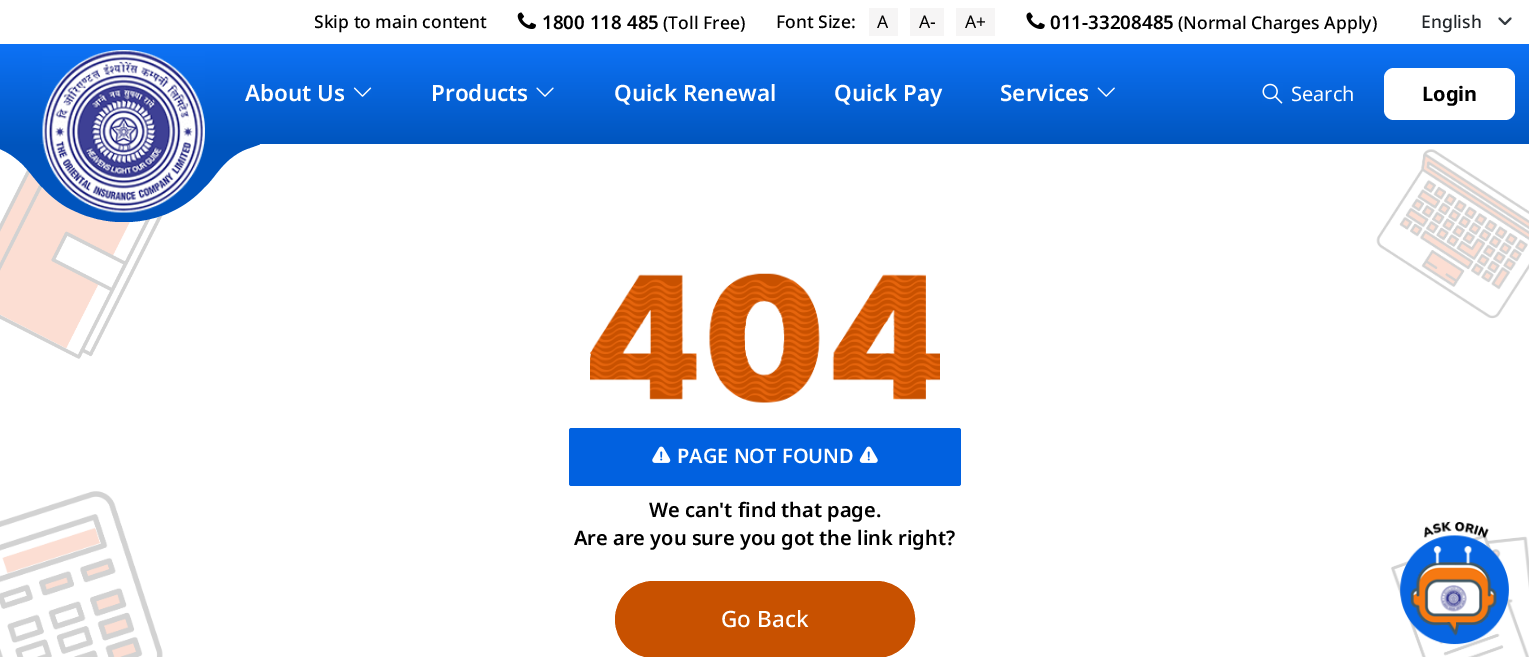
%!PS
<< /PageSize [1529 657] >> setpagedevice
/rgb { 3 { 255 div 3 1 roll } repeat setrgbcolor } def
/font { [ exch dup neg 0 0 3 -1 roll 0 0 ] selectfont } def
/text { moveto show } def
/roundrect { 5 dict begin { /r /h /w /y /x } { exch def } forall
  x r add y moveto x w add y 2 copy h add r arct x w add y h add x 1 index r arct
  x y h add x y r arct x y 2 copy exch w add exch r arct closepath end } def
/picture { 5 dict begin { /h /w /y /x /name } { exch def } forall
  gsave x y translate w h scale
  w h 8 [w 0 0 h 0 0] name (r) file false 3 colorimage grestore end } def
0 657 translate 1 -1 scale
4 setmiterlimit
255 255 255 rgb
0 0 1529 657 rectfill
(img_01.rgb) 517 12 19 17 picture
246 245 245 rgb
869 8 29 28 rectfill
910 8 34 28 rectfill
956 8 39 28 rectfill
(img_02.rgb) 1026 12 19 17 picture
52 58 64 rgb
1.9 setlinewidth
1 setlinecap
1 setlinejoin
1499.5 18.5 moveto 5.5 5.5 rlineto 5.5 -5.5 rlineto stroke
gsave 0 44 moveto 1529 0 rlineto 0 100 rlineto -1529 0 rlineto closepath clip newpath
<< /ShadingType 2 /ColorSpace /DeviceRGB /Coords [765 44 765 144] /Extend [true true] /Function << /FunctionType 2 /Domain [0 1] /C0 [0.051 0.447 0.965] /C1 [0 0.333 0.745] /N 1 >> >> shfill grestore
(img_08.rgb) 0 143 163 514 picture
gsave
0 144 260 78 rectclip
0 84 189 rgb
-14 144 moveto 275 0 rlineto -14 5 rlineto -6 2 -12 6 -17 10 rcurveto -10 8 -16 19 -25 28 rcurveto -10 11 -21 19 -34 25 rcurveto -20 9 -42 12 -63 9 rcurveto -15 -2 -29 -7 -42 -14 rcurveto -10 -6 -19 -14 -26 -22 rcurveto -8 -9 -15 -20 -25 -27 rcurveto -6 -5 -12 -8 -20 -11 rcurveto closepath fill
grestore
(img_03.rgb) 42 50 163 163 picture
(img_04.rgb) 353 87 19 10 picture
(img_05.rgb) 536 87 18 10 picture
(img_06.rgb) 1097 87 18 10 picture
(img_07.rgb) 1262 83 21 21 picture
255 255 255 rgb
1384 68 131 52 10 roundrect fill
(img_09.rgb) 590 273 350 130 picture
1 97 224 rgb
569 428 392 58 2.5 roundrect fill
(img_10.rgb) 652 446 19 17 picture
(img_11.rgb) 859 446 19 17 picture
200 81 0 rgb
615.5 581.5 299 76 38 roundrect gsave fill grestore
1 setlinewidth
0 setlinecap
0 setlinejoin
stroke
(img_12.rgb) 1376 149 153 508 picture
(img_13.rgb) 1400 521 109 124 picture
/NotoSans-Medium 17.5 font
0 0 0 rgb
(Skip to main content) 314 28 text
/NotoSans-SemiBold 18.75 font
(1800 118 485) 542 29 text
/NotoSans-Medium 17.5 font
(\(Toll Free\)) 663 29 text
(Font Size:) 776 28 text
/NotoSans-Regular 17.5 font
(A) 877 28 text
(A-) 919 28 text
(A+) 965 28 text
/NotoSans-SemiBold 18.75 font
(011-33208485) 1050 29 text
/NotoSans-Medium 17.5 font
(\(Normal Charges Apply\)) 1178 29 text
33 37 41 rgb
(English) 1421 28 text
/NotoSans-SemiBold 22.5 font
255 255 255 rgb
(About Us) 245 101 text
(Products) 431 101 text
(Quick Renewal) 614 101 text
(Quick Pay) 834 101 text
(Services) 1000 101 text
/NotoSans-Regular 20 font
(Search) 1291 101 text
/NotoSans-Bold 20 font
0 0 0 rgb
(Login) 1422 101 text
/NotoSans-SemiBold 20 font
255 255 255 rgb
(PAGE NOT FOUND) 677 463 text
0 0 0 rgb
(We can't find that page.) 649 517 text
(Are are you sure you got the link right?) 574 545 text
/NotoSans-Medium 22.5 font
255 255 255 rgb
(Go Back) 721 627 text
showpage
